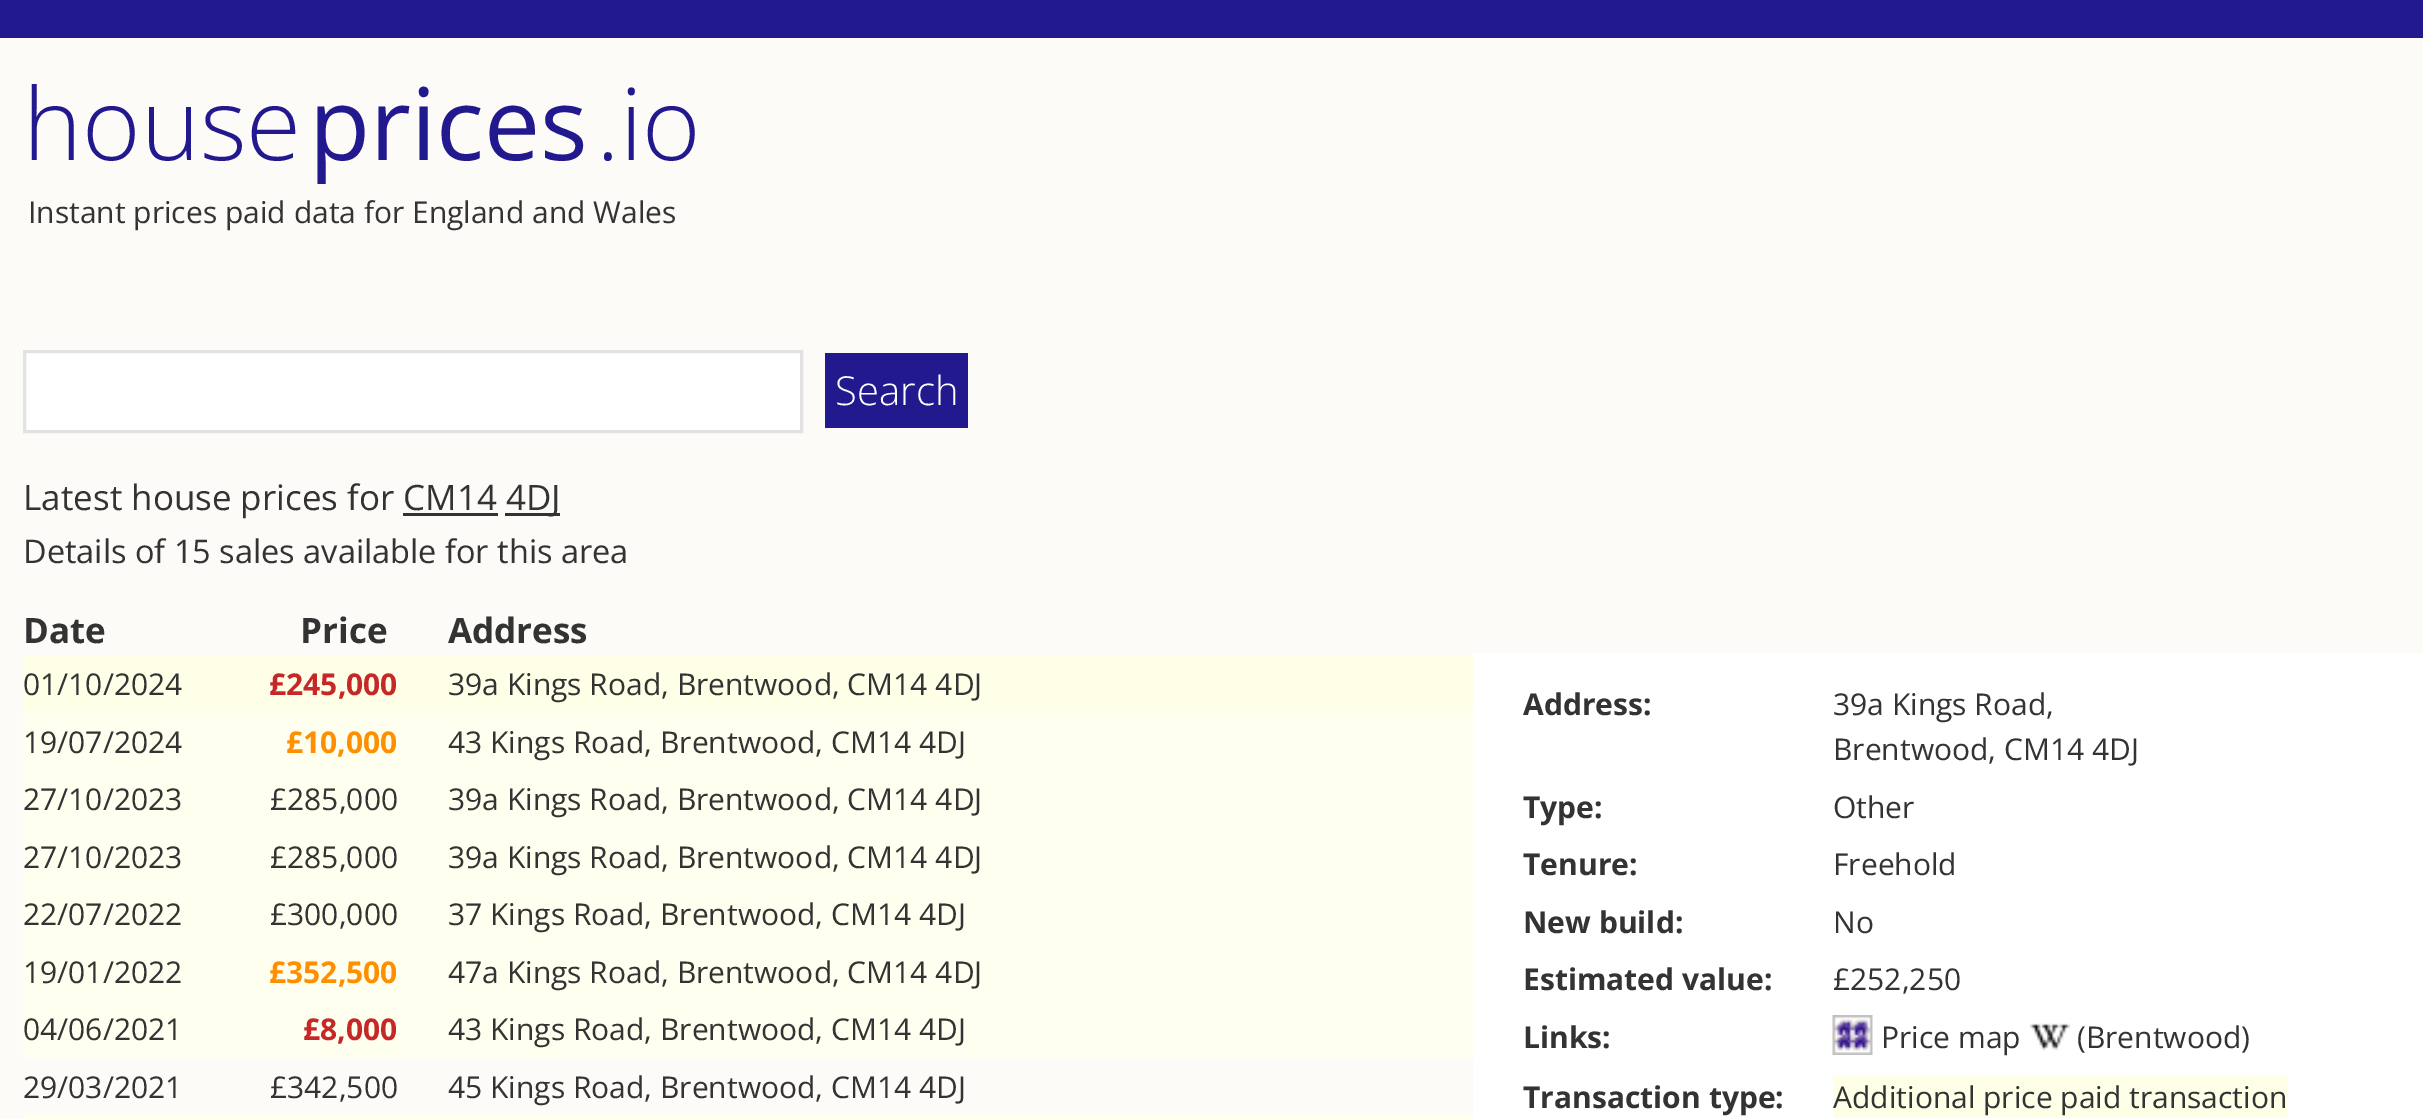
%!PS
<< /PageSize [2423 1119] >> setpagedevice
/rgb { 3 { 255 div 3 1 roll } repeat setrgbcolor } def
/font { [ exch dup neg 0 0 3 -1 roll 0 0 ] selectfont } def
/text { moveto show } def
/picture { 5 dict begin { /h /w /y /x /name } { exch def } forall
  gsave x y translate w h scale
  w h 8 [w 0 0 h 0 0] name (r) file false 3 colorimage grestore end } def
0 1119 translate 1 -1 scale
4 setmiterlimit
253 251 248 rgb
0 0 2423 1119 rectfill
34 25 142 rgb
0 0 2423 38 rectfill
255 255 255 rgb
24.5 351.5 moveto 777 0 rlineto 0 80 rlineto -777 0 rlineto closepath gsave fill grestore
226 226 226 rgb
3 setlinewidth
stroke
34 25 142 rgb
825 353 143 75 rectfill
51 51 51 rgb
505 513 55 3 rectfill
403 513 95 3 rectfill
255 255 232 rgb
23 655 1450 58 rectfill
255 255 240 rgb
23 713 1450 345 rectfill
23 1115 1450 4 rectfill
255 255 255 rgb
1473 653 950 466 rectfill
(img_01.rgb) 1832 1015 41 40 picture
(img_02.rgb) 2030 1023 40 28 picture
255 255 232 rgb
1833 1075 455 43 rectfill
/OpenSans-Light 100 font
34 25 142 rgb
(house) 23 160 text
/OpenSans-Regular 100 font
(prices) 309 160 text
/OpenSans-Light 100 font
(.io) 596 160 text
/OpenSans-Regular 30 font
51 51 51 rgb
(Instant prices paid data for England and Wales) 28 223 text
/OpenSans-Light 40 font
255 255 255 rgb
(Search) 835 405 text
/OpenSans-Regular 35 font
51 51 51 rgb
(Latest house prices for CM14) 23 510 text
(4DJ) 506 510 text
/OpenSans-Regular 32.5 font
(Details of 15 sales available for this area) 23 563 text
/OpenSans-Bold 35 font
(Date) 23 643 text
(Price) 300 643 text
(Address) 448 643 text
/OpenSans-Regular 30 font
(01/10/2024) 23 695 text
/OpenSans-Bold 30 font
198 40 40 rgb
(£245,000) 269 695 text
/OpenSans-Regular 30 font
51 51 51 rgb
(39a Kings Road, Brentwood, CM14 4DJ) 448 695 text
(19/07/2024) 23 753 text
/OpenSans-Bold 30 font
255 143 0 rgb
(£10,000) 286 753 text
/OpenSans-Regular 30 font
51 51 51 rgb
(43 Kings Road, Brentwood, CM14 4DJ) 448 753 text
(27/10/2023) 23 810 text
(£285,000) 270 810 text
(39a Kings Road, Brentwood, CM14 4DJ) 448 810 text
(27/10/2023) 23 868 text
(£285,000) 270 868 text
(39a Kings Road, Brentwood, CM14 4DJ) 448 868 text
(22/07/2022) 23 925 text
(£300,000) 270 925 text
(37 Kings Road, Brentwood, CM14 4DJ) 448 925 text
(19/01/2022) 23 983 text
/OpenSans-Bold 30 font
255 143 0 rgb
(£352,500) 269 983 text
/OpenSans-Regular 30 font
51 51 51 rgb
(47a Kings Road, Brentwood, CM14 4DJ) 448 983 text
(04/06/2021) 23 1040 text
/OpenSans-Bold 30 font
198 40 40 rgb
(£8,000) 303 1040 text
/OpenSans-Regular 30 font
51 51 51 rgb
(43 Kings Road, Brentwood, CM14 4DJ) 448 1040 text
(29/03/2021) 23 1098 text
(£342,500) 270 1098 text
(45 Kings Road, Brentwood, CM14 4DJ) 448 1098 text
/OpenSans-Bold 30 font
(Address:) 1523 715 text
/OpenSans-Regular 30 font
(39a Kings Road,) 1833 715 text
(Brentwood, CM14 4DJ) 1833 760 text
/OpenSans-Bold 30 font
(Type:) 1523 818 text
/OpenSans-Regular 30 font
(Other) 1833 818 text
/OpenSans-Bold 30 font
(Tenure:) 1523 875 text
/OpenSans-Regular 30 font
(Freehold) 1833 875 text
/OpenSans-Bold 30 font
(New build:) 1523 933 text
/OpenSans-Regular 30 font
(No) 1833 933 text
/OpenSans-Bold 30 font
(Estimated value:) 1523 990 text
/OpenSans-Regular 30 font
(£252,250) 1833 990 text
/OpenSans-Bold 30 font
(Links:) 1523 1048 text
/OpenSans-Regular 30 font
(Price map) 1881 1048 text
(\(Brentwood\)) 2077 1048 text
/OpenSans-Bold 30 font
(Transaction type:) 1523 1108 text
/OpenSans-Regular 30 font
(Additional price paid transaction) 1833 1108 text
showpage
